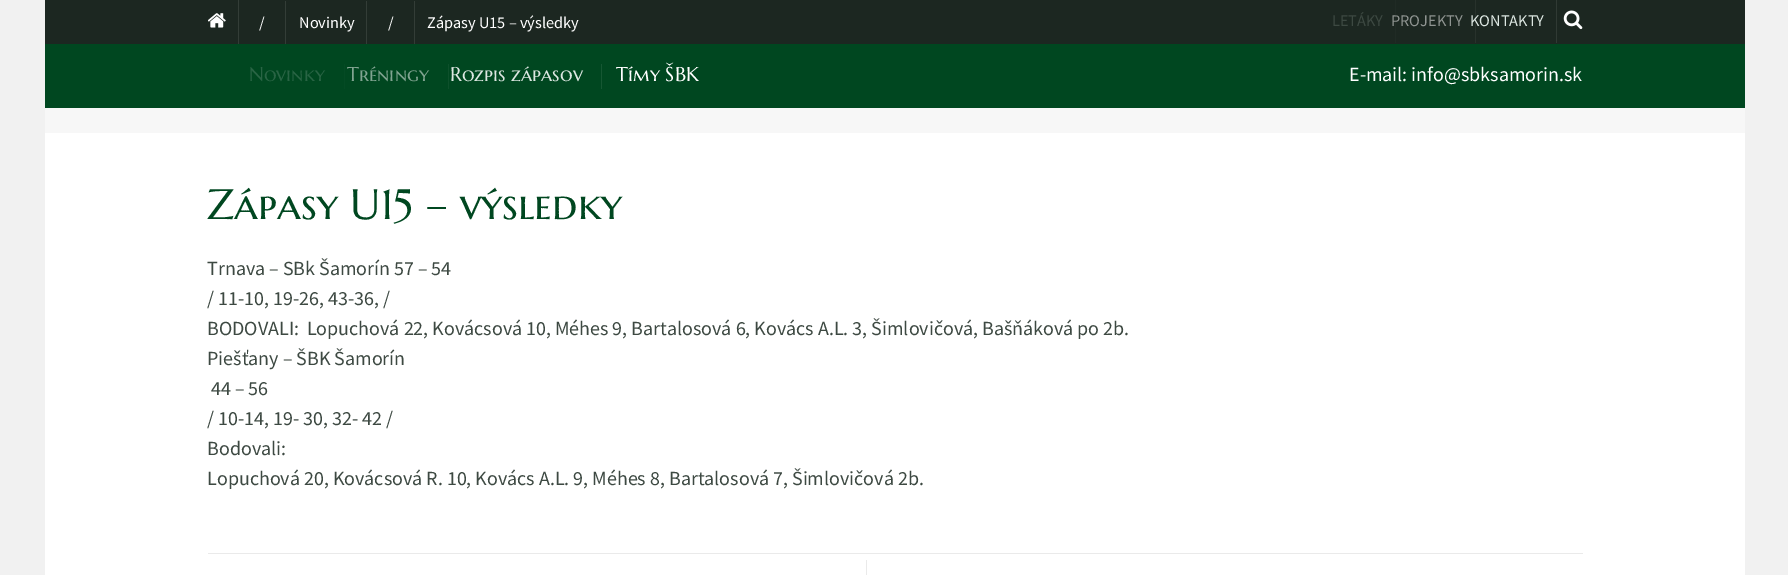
%!PS
<< /PageSize [1788 575] >> setpagedevice
/rgb { 3 { 255 div 3 1 roll } repeat setrgbcolor } def
/font { [ exch dup neg 0 0 3 -1 roll 0 0 ] selectfont } def
/text { moveto show } def
/picture { 5 dict begin { /h /w /y /x /name } { exch def } forall
  gsave x y translate w h scale
  w h 8 [w 0 0 h 0 0] name (r) file false 3 colorimage grestore end } def
0 575 translate 1 -1 scale
4 setmiterlimit
241 241 241 rgb
0 0 1788 575 rectfill
28 39 33 rgb
45 0 1700 44 rectfill
51 61 55 rgb
238 0 1 44 rectfill
(img_01.rgb) 208 13 18 15 picture
285 1 1 43 rectfill
366 1 1 43 rectfill
414 1 1 43 rectfill
32 43 37 rgb
1395 0 1 43 rectfill
40 50 44 rgb
1475 0 1 43 rectfill
48 58 52 rgb
1556 0 1 43 rectfill
(img_02.rgb) 1563 10 20 20 picture
0 71 32 rgb
45 44 1700 64 rectfill
4 74 36 rgb
344 64 1 25 rectfill
13 80 43 rgb
448 64 1 25 rectfill
22 87 51 rgb
601 64 1 25 rectfill
247 247 247 rgb
45 108 1700 25 rectfill
255 255 255 rgb
45 133 1700 442 rectfill
234 234 234 rgb
208 553 1375 1 rectfill
866 560 1 15 rectfill
/SourceSansPro-Regular 16.25 font
255 255 255 rgb
(/) 259 28 text
(Novinky) 299 28 text
(/) 388 28 text
(Zápasy U15 – výsledky) 427 28 text
61 73 66 rgb
(LETÁKY) 1332 26 text
143 148 145 rgb
(PROJEKTY) 1391 26 text
221 231 226 rgb
(KONTAKTY) 1470 26 text
/MarcellusSC-Regular 20 font
41 100 68 rgb
(Novinky) 249 81 text
129 164 145 rgb
(Tréningy) 347 81 text
221 231 226 rgb
(Rozpis zápasov) 450 81 text
255 255 255 rgb
(Tímy ŠBK) 616 81 text
/SourceSansPro-Regular 20 font
(E-mail: info@sbksamorin.sk) 1349 81 text
/MarcellusSC-Regular 42.5 font
0 71 32 rgb
(Zápasy U15 – výsledky) 207 219 text
/SourceSansPro-Regular 20 font
61 73 66 rgb
(Trnava – SBk Šamorín 57 – 54) 207 275 text
(/ 11-10, 19-26, 43-36, /) 207 305 text
(BODOVALI:  Lopuchová 22, Kovácsová 10, Méhes 9, Bartalosová 6, Kovács A.L. 3, Šimlovičová, Bašňáková po 2b.) 207 335 text
(Piešťany – ŠBK Šamorín) 207 365 text
(44 – 56) 211 395 text
(/ 10-14, 19- 30, 32- 42 /) 207 425 text
(Bodovali:) 207 455 text
(Lopuchová 20, Kovácsová R. 10, Kovács A.L. 9, Méhes 8, Bartalosová 7, Šimlovičová 2b.) 207 485 text
showpage
